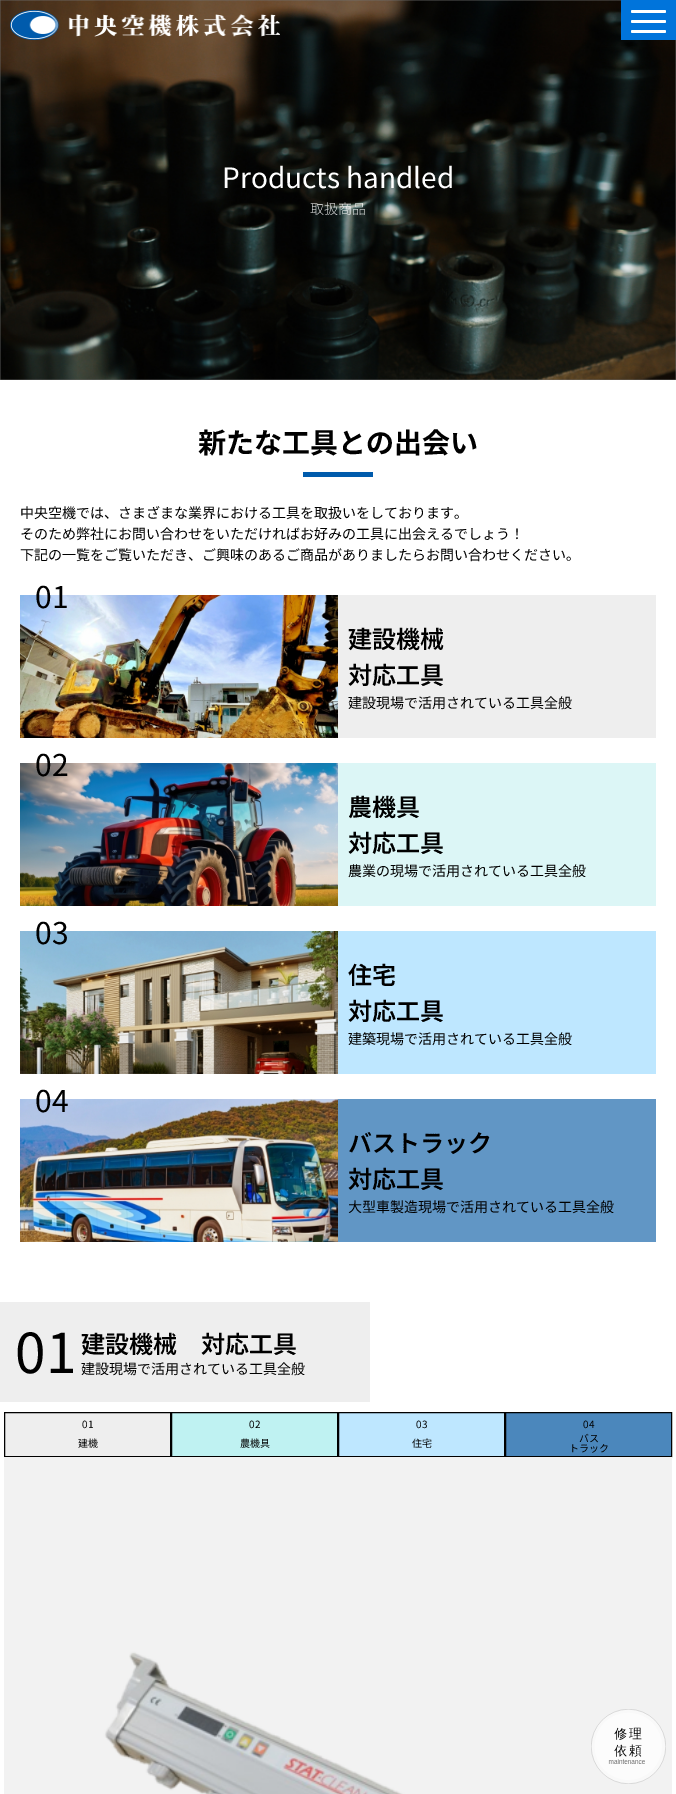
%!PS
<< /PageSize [676 1794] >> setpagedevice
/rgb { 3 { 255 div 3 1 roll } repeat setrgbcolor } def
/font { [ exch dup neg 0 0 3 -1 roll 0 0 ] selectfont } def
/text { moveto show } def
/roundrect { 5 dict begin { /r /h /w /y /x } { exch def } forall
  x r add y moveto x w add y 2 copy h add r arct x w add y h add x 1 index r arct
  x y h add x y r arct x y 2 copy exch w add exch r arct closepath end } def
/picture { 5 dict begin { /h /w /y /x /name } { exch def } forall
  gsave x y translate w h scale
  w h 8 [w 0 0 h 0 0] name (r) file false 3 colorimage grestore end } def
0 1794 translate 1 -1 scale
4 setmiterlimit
255 255 255 rgb
0 0 676 1794 rectfill
(img_02.rgb) 0 0 676 380 picture
(img_01.rgb) 10 10 270 30 picture
0 116 219 rgb
621 0 55 40 rectfill
255 255 255 rgb
631 10 35 3 1.5 roundrect fill
631 20 35 3 1.5 roundrect fill
631 30 35 3 1.5 roundrect fill
0 91 172 rgb
303 472 70 5 rectfill
(img_03.rgb) 20 595 318 143 picture
238 238 238 rgb
338 595 318 143 rectfill
(img_04.rgb) 20 763 318 143 picture
220 246 246 rgb
338 763 318 143 rectfill
(img_05.rgb) 20 931 318 143 picture
190 231 255 rgb
338 931 318 143 rectfill
(img_06.rgb) 20 1099 318 143 picture
97 150 197 rgb
338 1099 318 143 rectfill
238 238 238 rgb
0 1302 370 100 rectfill
4.5 1412.5 moveto 166 0 rlineto 0 44 rlineto -166 0 rlineto closepath gsave fill grestore
0 0 0 rgb
stroke
191 242 242 rgb
171.5 1412.5 moveto 166 0 rlineto 0 44 rlineto -166 0 rlineto closepath gsave fill grestore
0 0 0 rgb
stroke
190 231 255 rgb
338.5 1412.5 moveto 166 0 rlineto 0 44 rlineto -166 0 rlineto closepath gsave fill grestore
0 0 0 rgb
stroke
75 135 188 rgb
505.5 1412.5 moveto 166 0 rlineto 0 44 rlineto -166 0 rlineto closepath gsave fill grestore
0 0 0 rgb
stroke
(img_07.rgb) 4 1457 668 337 picture
(img_08.rgb) 591 1709 75 75 picture
/NotoSansJP-Regular 28 font
255 255 255 rgb
(Products handled) 222 188 text
/NotoSansJP-ExtraLight 14 font
(取扱商品) 310 214 text
/NotoSansJP-Bold 28 font
0 0 0 rgb
(新たな工具との出会い) 198 453 text
/NotoSansJP-Regular 14 font
(中央空機では、さまざまな業界における工具を取扱いをしております。) 20 518 text
(そのため弊社にお問い合わせをいただければお好みの工具に出会えるでしょう！) 20 539 text
(下記の一覧をご覧いただき、ご興味のあるご商品がありましたらお問い合わせください。) 20 560 text
/NotoSansJP-Regular 30 font
(01) 35 608 text
/NotoSansJP-SemiBold 24 font
(建設機械) 348 648 text
(対応工具) 348 684 text
/NotoSansJP-Regular 14 font
(建設現場で活用されている工具全般) 348 708 text
/NotoSansJP-Regular 30 font
(02) 35 776 text
/NotoSansJP-SemiBold 24 font
(農機具) 348 816 text
(対応工具) 348 852 text
/NotoSansJP-Regular 14 font
(農業の現場で活用されている工具全般) 348 876 text
/NotoSansJP-Regular 30 font
(03) 35 944 text
/NotoSansJP-SemiBold 24 font
(住宅) 348 984 text
(対応工具) 348 1020 text
/NotoSansJP-Regular 14 font
(建築現場で活用されている工具全般) 348 1044 text
/NotoSansJP-Regular 30 font
(04) 35 1112 text
/NotoSansJP-SemiBold 24 font
(バストラック) 348 1152 text
(対応工具) 348 1188 text
/NotoSansJP-Regular 14 font
(大型車製造現場で活用されている工具全般) 348 1212 text
/NotoSansJP-Regular 55 font
(01) 15 1373 text
/NotoSansJP-SemiBold 24 font
(建設機械　対応工具) 81 1353 text
/NotoSansJP-Regular 14 font
(建設現場で活用されている工具全般) 81 1374 text
/NotoSansJP-Regular 10 font
(01) 82 1428 text
(建機) 78 1447 text
(02) 249 1428 text
(農機具) 240 1447 text
(03) 416 1428 text
(住宅) 412 1447 text
(04) 583 1428 text
(バス) 579 1442 text
(トラック) 569 1452 text
showpage
